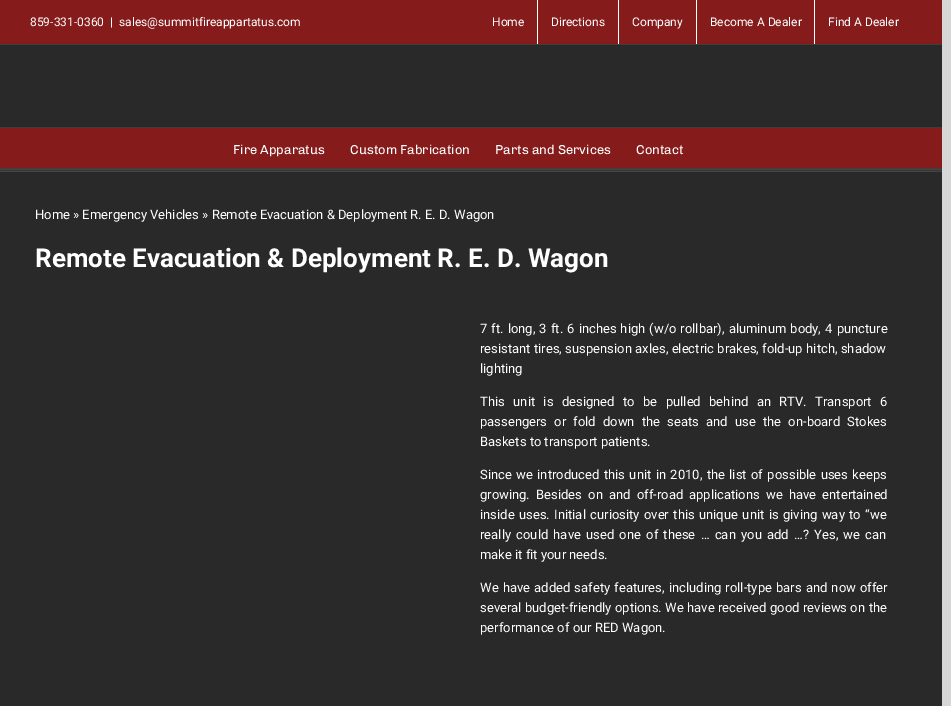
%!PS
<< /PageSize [951 706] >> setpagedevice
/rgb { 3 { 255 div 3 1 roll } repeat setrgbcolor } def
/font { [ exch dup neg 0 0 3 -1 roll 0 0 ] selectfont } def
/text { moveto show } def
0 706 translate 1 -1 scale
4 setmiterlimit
215 214 214 rgb
0 0 951 706 rectfill
133 27 27 rgb
0 0 942 44 rectfill
62 62 62 rgb
0 44 942 1 rectfill
255 255 255 rgb
537 0 1 44 rectfill
618 0 1 44 rectfill
696 0 1 44 rectfill
814 0 1 44 rectfill
41 41 42 rgb
0 45 942 82 rectfill
62 62 62 rgb
0 127 942 1 rectfill
133 27 27 rgb
0 128 942 40 rectfill
62 62 62 rgb
0 168 942 1 rectfill
53 53 53 rgb
0 170 942 1 rectfill
70 70 70 rgb
0 169 942 1 rectfill
0 171 942 1 rectfill
41 41 42 rgb
0 172 942 534 rectfill
/Roboto-Regular 12 font
255 255 255 rgb
(859-331-0360) 30 26 text
(|) 110 26 text
(sales@summitfireappartatus.com) 119 26 text
(Home) 492 26 text
(Directions) 551 26 text
(Company) 632 26 text
(Become A Dealer) 710 26 text
(Find A Dealer) 828 26 text
/Chivo-Regular 13 font
(Fire Apparatus) 233 154 text
(Custom Fabrication) 350 154 text
(Parts and Services) 495 154 text
(Contact) 636 154 text
/Roboto-Regular 13 font
(Home » Emergency Vehicles » Remote Evacuation & Deployment R. E. D. Wagon) 35 219 text
/Roboto-Bold 26 font
(Remote Evacuation & Deployment R. E. D. Wagon) 35 267 text
/Roboto-Regular 13 font
480 333 moveto 0.9 0 32 (7 ft. long, 3 ft. 6 inches high \(w/o rollbar\), aluminum body, 4 puncture) widthshow
480 353 moveto 0.25 0 32 (resistant tires, suspension axles, electric brakes, fold-up hitch, shadow) widthshow
(lighting) 480 373 text
480 406 moveto 5.25 0 32 (This unit is designed to be pulled behind an RTV. Transport 6) widthshow
480 426 moveto 4 0 32 (passengers or fold down the seats and use the on-board Stokes) widthshow
(Baskets to transport patients.) 480 446 text
480 479 moveto 1.25 0 32 (Since we introduced this unit in 2010, the list of possible uses keeps) widthshow
480 499 moveto 3 0 32 (growing. Besides on and off-road applications we have entertained) widthshow
480 519 moveto 1.25 0 32 (inside uses. Initial curiosity over this unique unit is giving way to “we) widthshow
480 539 moveto 2.1 0 32 (really could have used one of these … can you add …? Yes, we can) widthshow
(make it fit your needs.) 480 559 text
480 592 moveto 1 0 32 (We have added safety features, including roll-type bars and now offer) widthshow
480 612 moveto 0.25 0 32 (several budget-friendly options. We have received good reviews on the) widthshow
(performance of our RED Wagon.) 480 632 text
showpage
